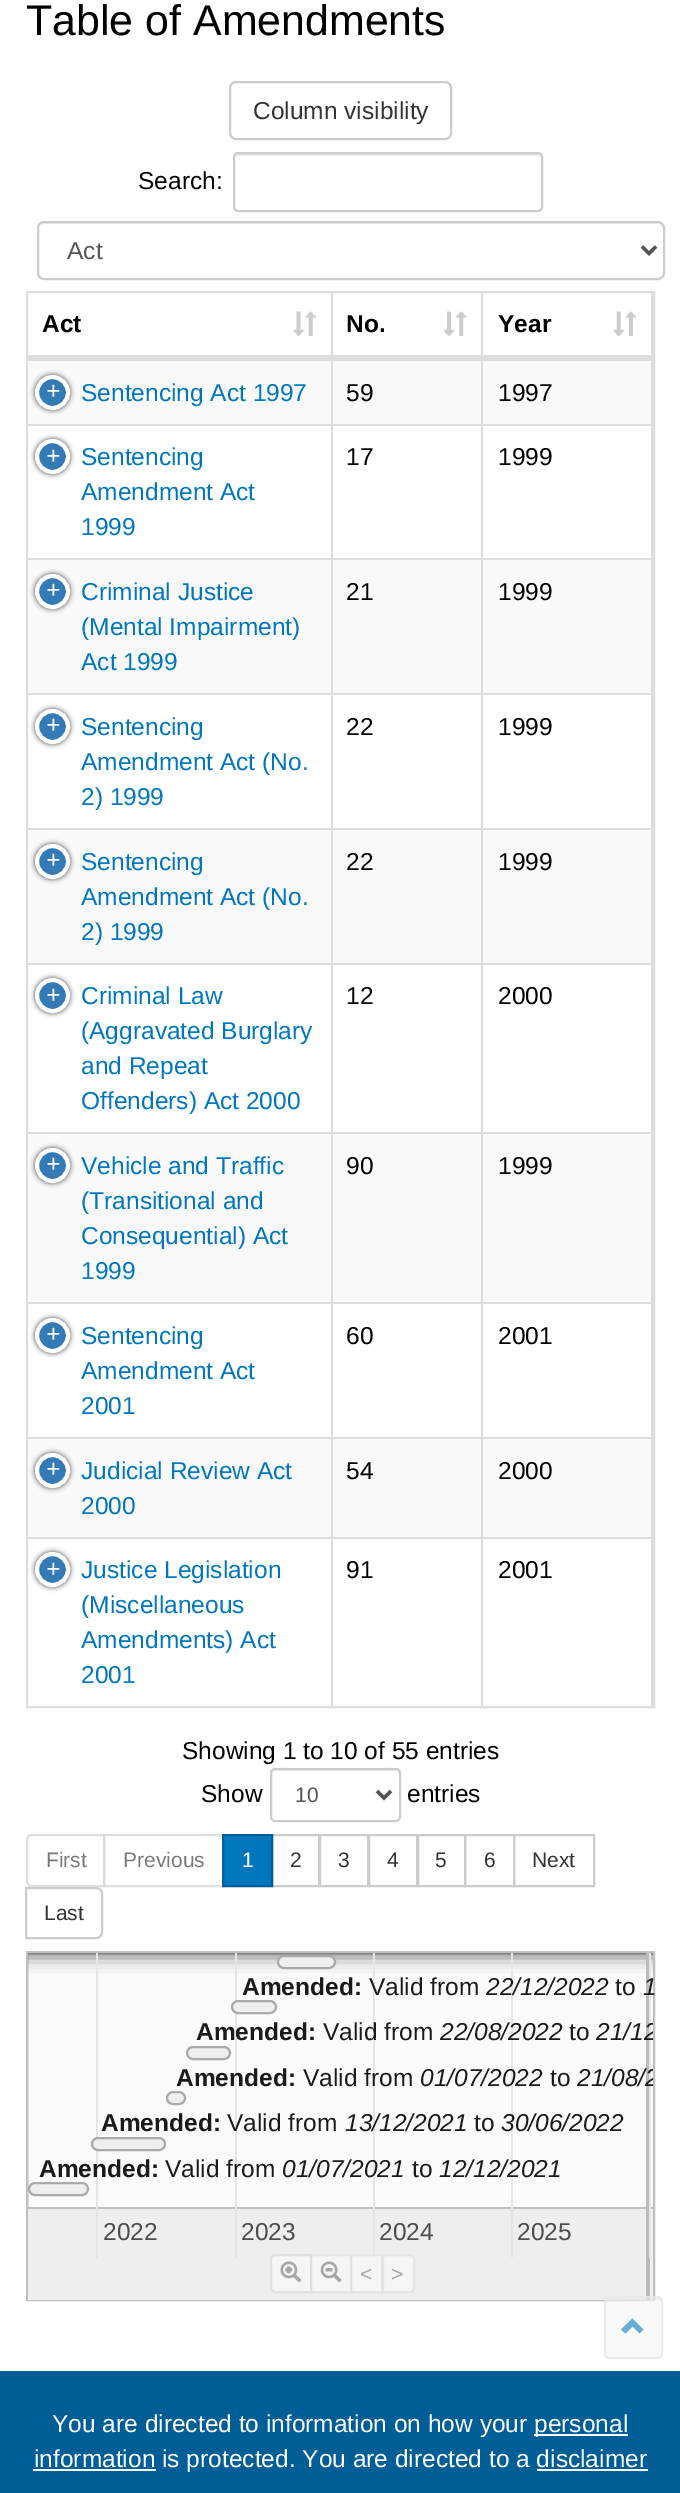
%!PS
<< /PageSize [680 2493] /PageUsesTransparency true >> setpagedevice
/rgb { 3 { 255 div 3 1 roll } repeat setrgbcolor } def
/font { [ exch dup neg 0 0 3 -1 roll 0 0 ] selectfont } def
/text { moveto show } def
/alpha { dup .setfillconstantalpha .setstrokeconstantalpha } def
/circle { newpath 0 360 arc closepath } def
/roundrect { 5 dict begin { /r /h /w /y /x } { exch def } forall
  x r add y moveto x w add y 2 copy h add r arct x w add y h add x 1 index r arct
  x y h add x y r arct x y 2 copy exch w add exch r arct closepath end } def
/shadow { 12 dict begin { /a /b /q /h /w /y /x } { exch def } forall gsave /was 0 def
  9 -2 -9 { dup b mul 4 div /e exch def 1 sub .425 mul 2.718 exch exp 1 add a .99 .min exch div /now exch def
    1 1 now sub 1 was sub div sub alpha /was now def
    w h .min e 2 mul add 0 gt { x e sub y e sub w e 2 mul add h e 2 mul add
      q e add b .6 mul add w h .min 2 div e add .min 0 .max roundrect fill } if } for grestore end } def
/picture { 5 dict begin { /h /w /y /x /name } { exch def } forall
  gsave x y translate w h scale
  w h 8 [w 0 0 h 0 0] name (r) file false 3 colorimage grestore end } def
0 .pushpdf14devicefilter
0 2493 translate 1 -1 scale
4 setmiterlimit
255 255 255 rgb
0 0 680 2493 rectfill
204 204 204 rgb
2 setlinewidth
230 82 221 57 6 roundrect stroke
236 236 236 rgb
238 156 moveto 299 0 rlineto 2 0 4 1 4 3 rcurveto 0 -1 rlineto 0 -2 -2 -4 -4 -4 rcurveto -298 0 rlineto -2 0 -3 1 -4 3 rcurveto closepath fill
204 204 204 rgb
234 153 308 58 4 roundrect stroke
236 236 236 rgb
44 224 moveto 614 0 rlineto 3 0 5 2 5 5 rcurveto 0 -2 rlineto 0 -3 -2 -5 -5 -5 rcurveto -614 0 rlineto -2 0 -5 2 -5 4 rcurveto 1 -1 3 -2 5 -2 rcurveto closepath fill
204 204 204 rgb
38 222 626 57 6 roundrect stroke
85 85 85 rgb
3.5 setlinewidth
642 246.5 moveto 7 7 rlineto 7 -7 rlineto stroke
221 221 221 rgb
2 setlinewidth
27 292 627 1415 rectstroke
249 249 249 rgb
28 361 623 63 rectfill
221 221 221 rgb
28 359 625 2 rectfill
28 424 625 2 rectfill
249 249 249 rgb
28 560 623 133 rectfill
221 221 221 rgb
28 558 625 2 rectfill
28 693 625 2 rectfill
249 249 249 rgb
28 830 623 133 rectfill
221 221 221 rgb
28 828 625 2 rectfill
28 963 625 2 rectfill
249 249 249 rgb
28 1134 623 168 rectfill
221 221 221 rgb
28 1132 625 2 rectfill
28 1302 625 2 rectfill
249 249 249 rgb
28 1439 623 98 rectfill
221 221 221 rgb
28 1437 625 2 rectfill
28 1537 625 2 rectfill
331 292 2 1414 rectfill
481 292 2 132 rectfill
651 292 2 132 rectfill
28 355 625 4 rectfill
(img_01.rgb) 293 311 24 25 picture
(img_02.rgb) 443 311 24 25 picture
(img_03.rgb) 613 311 24 25 picture
68 68 68 rgb
35 375 35 35 17.5 2.5 1 shadow
51 122 183 rgb
52.5 392.5 15.5 circle gsave fill grestore
255 255 255 rgb
4 setlinewidth
stroke
68 68 68 rgb
35 439 35 35 17.5 2.5 1 shadow
51 122 183 rgb
52.5 456.5 15.5 circle gsave fill grestore
255 255 255 rgb
stroke
221 221 221 rgb
481 424 2 134 rectfill
651 424 2 134 rectfill
68 68 68 rgb
35 574 35 35 17.5 2.5 1 shadow
51 122 183 rgb
52.5 591.5 15.5 circle gsave fill grestore
255 255 255 rgb
stroke
221 221 221 rgb
481 558 2 135 rectfill
651 558 2 135 rectfill
68 68 68 rgb
35 709 35 35 17.5 2.5 1 shadow
51 122 183 rgb
52.5 726.5 15.5 circle gsave fill grestore
255 255 255 rgb
stroke
221 221 221 rgb
481 693 2 135 rectfill
651 693 2 135 rectfill
68 68 68 rgb
35 844 35 35 17.5 2.5 1 shadow
51 122 183 rgb
52.5 861.5 15.5 circle gsave fill grestore
255 255 255 rgb
stroke
221 221 221 rgb
481 828 2 135 rectfill
651 828 2 135 rectfill
68 68 68 rgb
35 978 35 35 17.5 2.5 1 shadow
51 122 183 rgb
52.5 995.5 15.5 circle gsave fill grestore
255 255 255 rgb
stroke
221 221 221 rgb
481 963 2 169 rectfill
651 963 2 169 rectfill
68 68 68 rgb
35 1148 35 35 17.5 2.5 1 shadow
51 122 183 rgb
52.5 1165.5 15.5 circle gsave fill grestore
255 255 255 rgb
stroke
221 221 221 rgb
481 1132 2 170 rectfill
651 1132 2 170 rectfill
68 68 68 rgb
35 1318 35 35 17.5 2.5 1 shadow
51 122 183 rgb
52.5 1335.5 15.5 circle gsave fill grestore
255 255 255 rgb
stroke
221 221 221 rgb
481 1302 2 135 rectfill
651 1302 2 135 rectfill
68 68 68 rgb
35 1453 35 35 17.5 2.5 1 shadow
51 122 183 rgb
52.5 1470.5 15.5 circle gsave fill grestore
255 255 255 rgb
stroke
221 221 221 rgb
481 1437 2 100 rectfill
651 1437 2 100 rectfill
68 68 68 rgb
35 1552 35 35 17.5 2.5 1 shadow
51 122 183 rgb
52.5 1569.5 15.5 circle gsave fill grestore
255 255 255 rgb
stroke
221 221 221 rgb
481 1537 2 169 rectfill
651 1537 2 169 rectfill
236 236 236 rgb
275 1771 moveto 121 0 rlineto 1 0 3 2 3 3 rcurveto 0 -10 -22 -5 -24 -5 rcurveto -80 0 rlineto -2 0 -24 -5 -24 5 rcurveto 0 -1 2 -3 4 -3 rcurveto closepath fill
204 204 204 rgb
2 setlinewidth
271 1769 129 52 4 roundrect stroke
85 85 85 rgb
3.5 setlinewidth
377 1791 moveto 7 7 rlineto 7 -7 rlineto stroke
222 222 222 rgb
2 setlinewidth
31 1835 moveto 73 0 rlineto 0 51 rlineto -73 0 rlineto -2 0 -4 -2 -4 -4 rcurveto 0 -43 rlineto 0 -2 2 -4 4 -4 rcurveto closepath stroke
0.65 alpha
255 255 255 rgb
103 1834 2 53 rectfill
204 204 204 rgb
104 1835 119 51 rectstroke
1 alpha
272 1835 47 51 rectstroke
0 118 189 rgb
223 1835 moveto 49 0 rlineto 0 51 rlineto -49 0 rlineto closepath gsave fill grestore
0 94 151 rgb
stroke
204 204 204 rgb
320 1835 48 51 rectstroke
369 1835 48 51 rectstroke
418 1835 47 51 rectstroke
465 1835 49 51 rectstroke
514 1835 80 51 rectstroke
26 1888 moveto 70 0 rlineto 3.5 0 6 2.5 6 6 rcurveto 0 38 rlineto 0 3.5 -2.5 6 -6 6 rcurveto -70 0 rlineto closepath stroke
250 250 250 rgb
28 1953 625 254 rectfill
191 191 191 rgb
27 1952 627 348 rectstroke
gsave
28 1953 625 347 rectclip
27 1952 627 256 rectstroke
grestore
gsave
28 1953 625 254 rectclip
0 0 0 rgb
28 1951 625 2 0 9 0.8 shadow
grestore
238 238 238 rgb
28 2209 625 91 rectfill
229 229 229 rgb
96 1953 2 305 rectfill
235 1953 2 305 rectfill
373 1953 2 305 rectfill
511 1953 2 305 rectfill
187 187 187 rgb
646 1953 4 347 rectfill
229 229 229 rgb
649 1953 2 305 rectfill
238 238 238 rgb
278 1956 57 12 6 roundrect gsave fill grestore
170 170 170 rgb
stroke
238 238 238 rgb
232 2001 44 12 6 roundrect gsave fill grestore
170 170 170 rgb
stroke
238 238 238 rgb
187 2047 43 12 6 roundrect gsave fill grestore
170 170 170 rgb
stroke
238 238 238 rgb
167 2092 18 12 6 roundrect gsave fill grestore
170 170 170 rgb
stroke
238 238 238 rgb
92 2138 73 12 6 roundrect gsave fill grestore
170 170 170 rgb
stroke
238 238 238 rgb
29 2183 59 12 6 roundrect gsave fill grestore
170 170 170 rgb
stroke
245 245 245 rgb
275 2255 moveto 36 0 rlineto 0 37 rlineto -36 0 rlineto -2 0 -4 -2 -4 -4 rcurveto 0 -29 rlineto 0 -2 2 -4 4 -4 rcurveto closepath gsave fill grestore
224 224 224 rgb
stroke
(img_04.rgb) 280 2261 22 22 picture
0.4 alpha
255 255 255 rgb
310 2254 42 39 rectfill
204 204 204 rgb
311 2255 40 37 rectstroke
1 alpha
(img_05.rgb) 320 2261 22 22 picture
0.4 alpha
255 255 255 rgb
350 2254 33 39 rectfill
204 204 204 rgb
351 2255 31 37 rectstroke
255 255 255 rgb
382 2254 moveto 28 0 rlineto 3 0 5 2 5 5 rcurveto 0 29 rlineto 0 3 -2 5 -5 5 rcurveto -28 0 rlineto closepath fill
204 204 204 rgb
383 2255 moveto 27 0 rlineto 2 0 4 2 4 4 rcurveto 0 29 rlineto 0 2 -2 4 -4 4 rcurveto -27 0 rlineto closepath stroke
0.6 alpha
245 245 245 rgb
604 2296 59 63 5 roundrect fill
0.03 alpha
0 0 0 rgb
609 2300 moveto 49 0 rlineto 2 0 4 1 4 3 rcurveto 0 -7 -7 -5 -12 -5 rcurveto -32 0 rlineto -5 0 -12 -2 -12 5 rcurveto 0 -2 1 -3 3 -3 rcurveto closepath fill
0.6 alpha
227 227 227 rgb
605 2297 57 61 4 roundrect stroke
1 alpha
102 173 215 rgb
643.5 2329.5 moveto -4 4 rlineto -7 -7 rlineto -7 7 rlineto -4.5 -4 rlineto 11.5 -11 rlineto closepath fill
0 94 151 rgb
0 2371 680 122 rectfill
255 255 255 rgb
534 2434 94 2 rectfill
33 2469 123 2 rectfill
537 2469 111 2 rectfill
/LiberationSans-Regular 42.9 font
0 0 0 rgb
(Table of Amendments) 26 35 text
/LiberationSans-Regular 24.5 font
51 51 51 rgb
(Column visibility) 253 119 text
0 0 0 rgb
(Search:) 138 189 text
85 85 85 rgb
(Act) 67 259 text
/LiberationSans-Bold 24.5 font
0 0 0 rgb
(Act) 42 332 text
(No.) 346 332 text
(Year) 498 332 text
/LiberationMono-Regular 24.5 font
255 255 255 rgb
(+) 46 399 text
/LiberationSans-Regular 24.5 font
0 118 189 rgb
(Sentencing Act 1997) 81 401 text
0 0 0 rgb
(59) 346 401 text
(1997) 498 401 text
/LiberationMono-Regular 24.5 font
255 255 255 rgb
(+) 46 464 text
/LiberationSans-Regular 24.5 font
0 118 189 rgb
(Sentencing) 81 465 text
(Amendment Act) 81 500 text
(1999) 81 535 text
0 0 0 rgb
(17) 346 465 text
(1999) 498 465 text
/LiberationMono-Regular 24.5 font
255 255 255 rgb
(+) 46 598 text
/LiberationSans-Regular 24.5 font
0 118 189 rgb
(Criminal Justice) 81 600 text
(\(Mental Impairment\)) 81 635 text
(Act 1999) 81 670 text
0 0 0 rgb
(21) 346 600 text
(1999) 498 600 text
/LiberationMono-Regular 24.5 font
255 255 255 rgb
(+) 46 733 text
/LiberationSans-Regular 24.5 font
0 118 189 rgb
(Sentencing) 81 735 text
(Amendment Act \(No.) 81 770 text
(2\) 1999) 81 805 text
0 0 0 rgb
(22) 346 735 text
(1999) 498 735 text
/LiberationMono-Regular 24.5 font
255 255 255 rgb
(+) 46 868 text
/LiberationSans-Regular 24.5 font
0 118 189 rgb
(Sentencing) 81 870 text
(Amendment Act \(No.) 81 905 text
(2\) 1999) 81 940 text
0 0 0 rgb
(22) 346 870 text
(1999) 498 870 text
/LiberationMono-Regular 24.5 font
255 255 255 rgb
(+) 46 1003 text
/LiberationSans-Regular 24.5 font
0 118 189 rgb
(Criminal Law) 81 1004 text
(\(Aggravated Burglary) 81 1039 text
(and Repeat) 81 1074 text
(Offenders\) Act 2000) 81 1109 text
0 0 0 rgb
(12) 346 1004 text
(2000) 498 1004 text
/LiberationMono-Regular 24.5 font
255 255 255 rgb
(+) 46 1172 text
/LiberationSans-Regular 24.5 font
0 118 189 rgb
(Vehicle and Traffic) 81 1174 text
(\(Transitional and) 81 1209 text
(Consequential\) Act) 81 1244 text
(1999) 81 1279 text
0 0 0 rgb
(90) 346 1174 text
(1999) 498 1174 text
/LiberationMono-Regular 24.5 font
255 255 255 rgb
(+) 46 1342 text
/LiberationSans-Regular 24.5 font
0 118 189 rgb
(Sentencing) 81 1344 text
(Amendment Act) 81 1379 text
(2001) 81 1414 text
0 0 0 rgb
(60) 346 1344 text
(2001) 498 1344 text
/LiberationMono-Regular 24.5 font
255 255 255 rgb
(+) 46 1477 text
/LiberationSans-Regular 24.5 font
0 118 189 rgb
(Judicial Review Act) 81 1479 text
(2000) 81 1514 text
0 0 0 rgb
(54) 346 1479 text
(2000) 498 1479 text
/LiberationMono-Regular 24.5 font
255 255 255 rgb
(+) 46 1577 text
/LiberationSans-Regular 24.5 font
0 118 189 rgb
(Justice Legislation) 81 1578 text
(\(Miscellaneous) 81 1613 text
(Amendments\) Act) 81 1648 text
(2001) 81 1683 text
0 0 0 rgb
(91) 346 1578 text
(2001) 498 1578 text
(Showing 1 to 10 of 55 entries) 182 1759 text
(Show) 201 1802 text
/LiberationSans-Regular 21 font
85 85 85 rgb
(10) 295 1802 text
/LiberationSans-Regular 24.5 font
0 0 0 rgb
(entries) 407 1802 text
/LiberationSans-Regular 21 font
122 122 122 rgb
(First) 46 1867 text
(Previous) 123 1867 text
255 255 255 rgb
(1) 242 1867 text
51 51 51 rgb
(2) 290 1867 text
(3) 338 1867 text
(4) 387 1867 text
(5) 435 1867 text
(6) 484 1867 text
(Next) 532 1867 text
(Last) 44 1920 text
/LiberationSans-Bold 24.5 font
26 26 26 rgb
(Amended:) 242 1995 text
/LiberationSans-Regular 24.5 font
(Valid from) 369 1995 text
/LiberationSans-Italic 24.5 font
(22/12/2022) 486 1995 text
/LiberationSans-Regular 24.5 font
(to) 615 1995 text
/LiberationSans-Italic 24.5 font
(1) 643 1995 text
/LiberationSans-Bold 24.5 font
(Amended:) 196 2040 text
/LiberationSans-Regular 24.5 font
(Valid from) 323 2040 text
/LiberationSans-Italic 24.5 font
(22/08/2022) 440 2040 text
/LiberationSans-Regular 24.5 font
(to) 569 2040 text
gsave
28 1953 625 254 rectclip
/LiberationSans-Italic 24.5 font
(21/12) 596 2040 text
grestore
/LiberationSans-Bold 24.5 font
(Amended:) 176 2086 text
/LiberationSans-Regular 24.5 font
(Valid from) 303 2086 text
/LiberationSans-Italic 24.5 font
(01/07/2022) 420 2086 text
/LiberationSans-Regular 24.5 font
(to) 550 2086 text
gsave
28 1953 625 254 rectclip
/LiberationSans-Italic 24.5 font
(21/08/2) 577 2086 text
grestore
/LiberationSans-Bold 24.5 font
(Amended:) 101 2131 text
/LiberationSans-Regular 24.5 font
(Valid from) 227 2131 text
/LiberationSans-Italic 24.5 font
(13/12/2021) 345 2131 text
/LiberationSans-Regular 24.5 font
(to) 474 2131 text
/LiberationSans-Italic 24.5 font
(30/06/2022) 501 2131 text
/LiberationSans-Bold 24.5 font
(Amended:) 39 2177 text
/LiberationSans-Regular 24.5 font
(Valid from) 165 2177 text
/LiberationSans-Italic 24.5 font
(01/07/2021) 282 2177 text
/LiberationSans-Regular 24.5 font
(to) 412 2177 text
/LiberationSans-Italic 24.5 font
(12/12/2021) 439 2177 text
/LiberationSans-Regular 24.5 font
77 77 77 rgb
(2022) 103 2240 text
(2023) 241 2240 text
(2024) 379 2240 text
(2025) 517 2240 text
/LiberationSans-Regular 21 font
163 163 163 rgb
(<) 360 2281 text
(>) 391 2281 text
/LiberationSans-Regular 24.5 font
255 255 255 rgb
(You are directed to information on how your) 52 2432 text
(personal) 534 2432 text
(information is protected. You are directed to a disclaimer) 34 2467 text
.poppdf14devicefilter showpage
